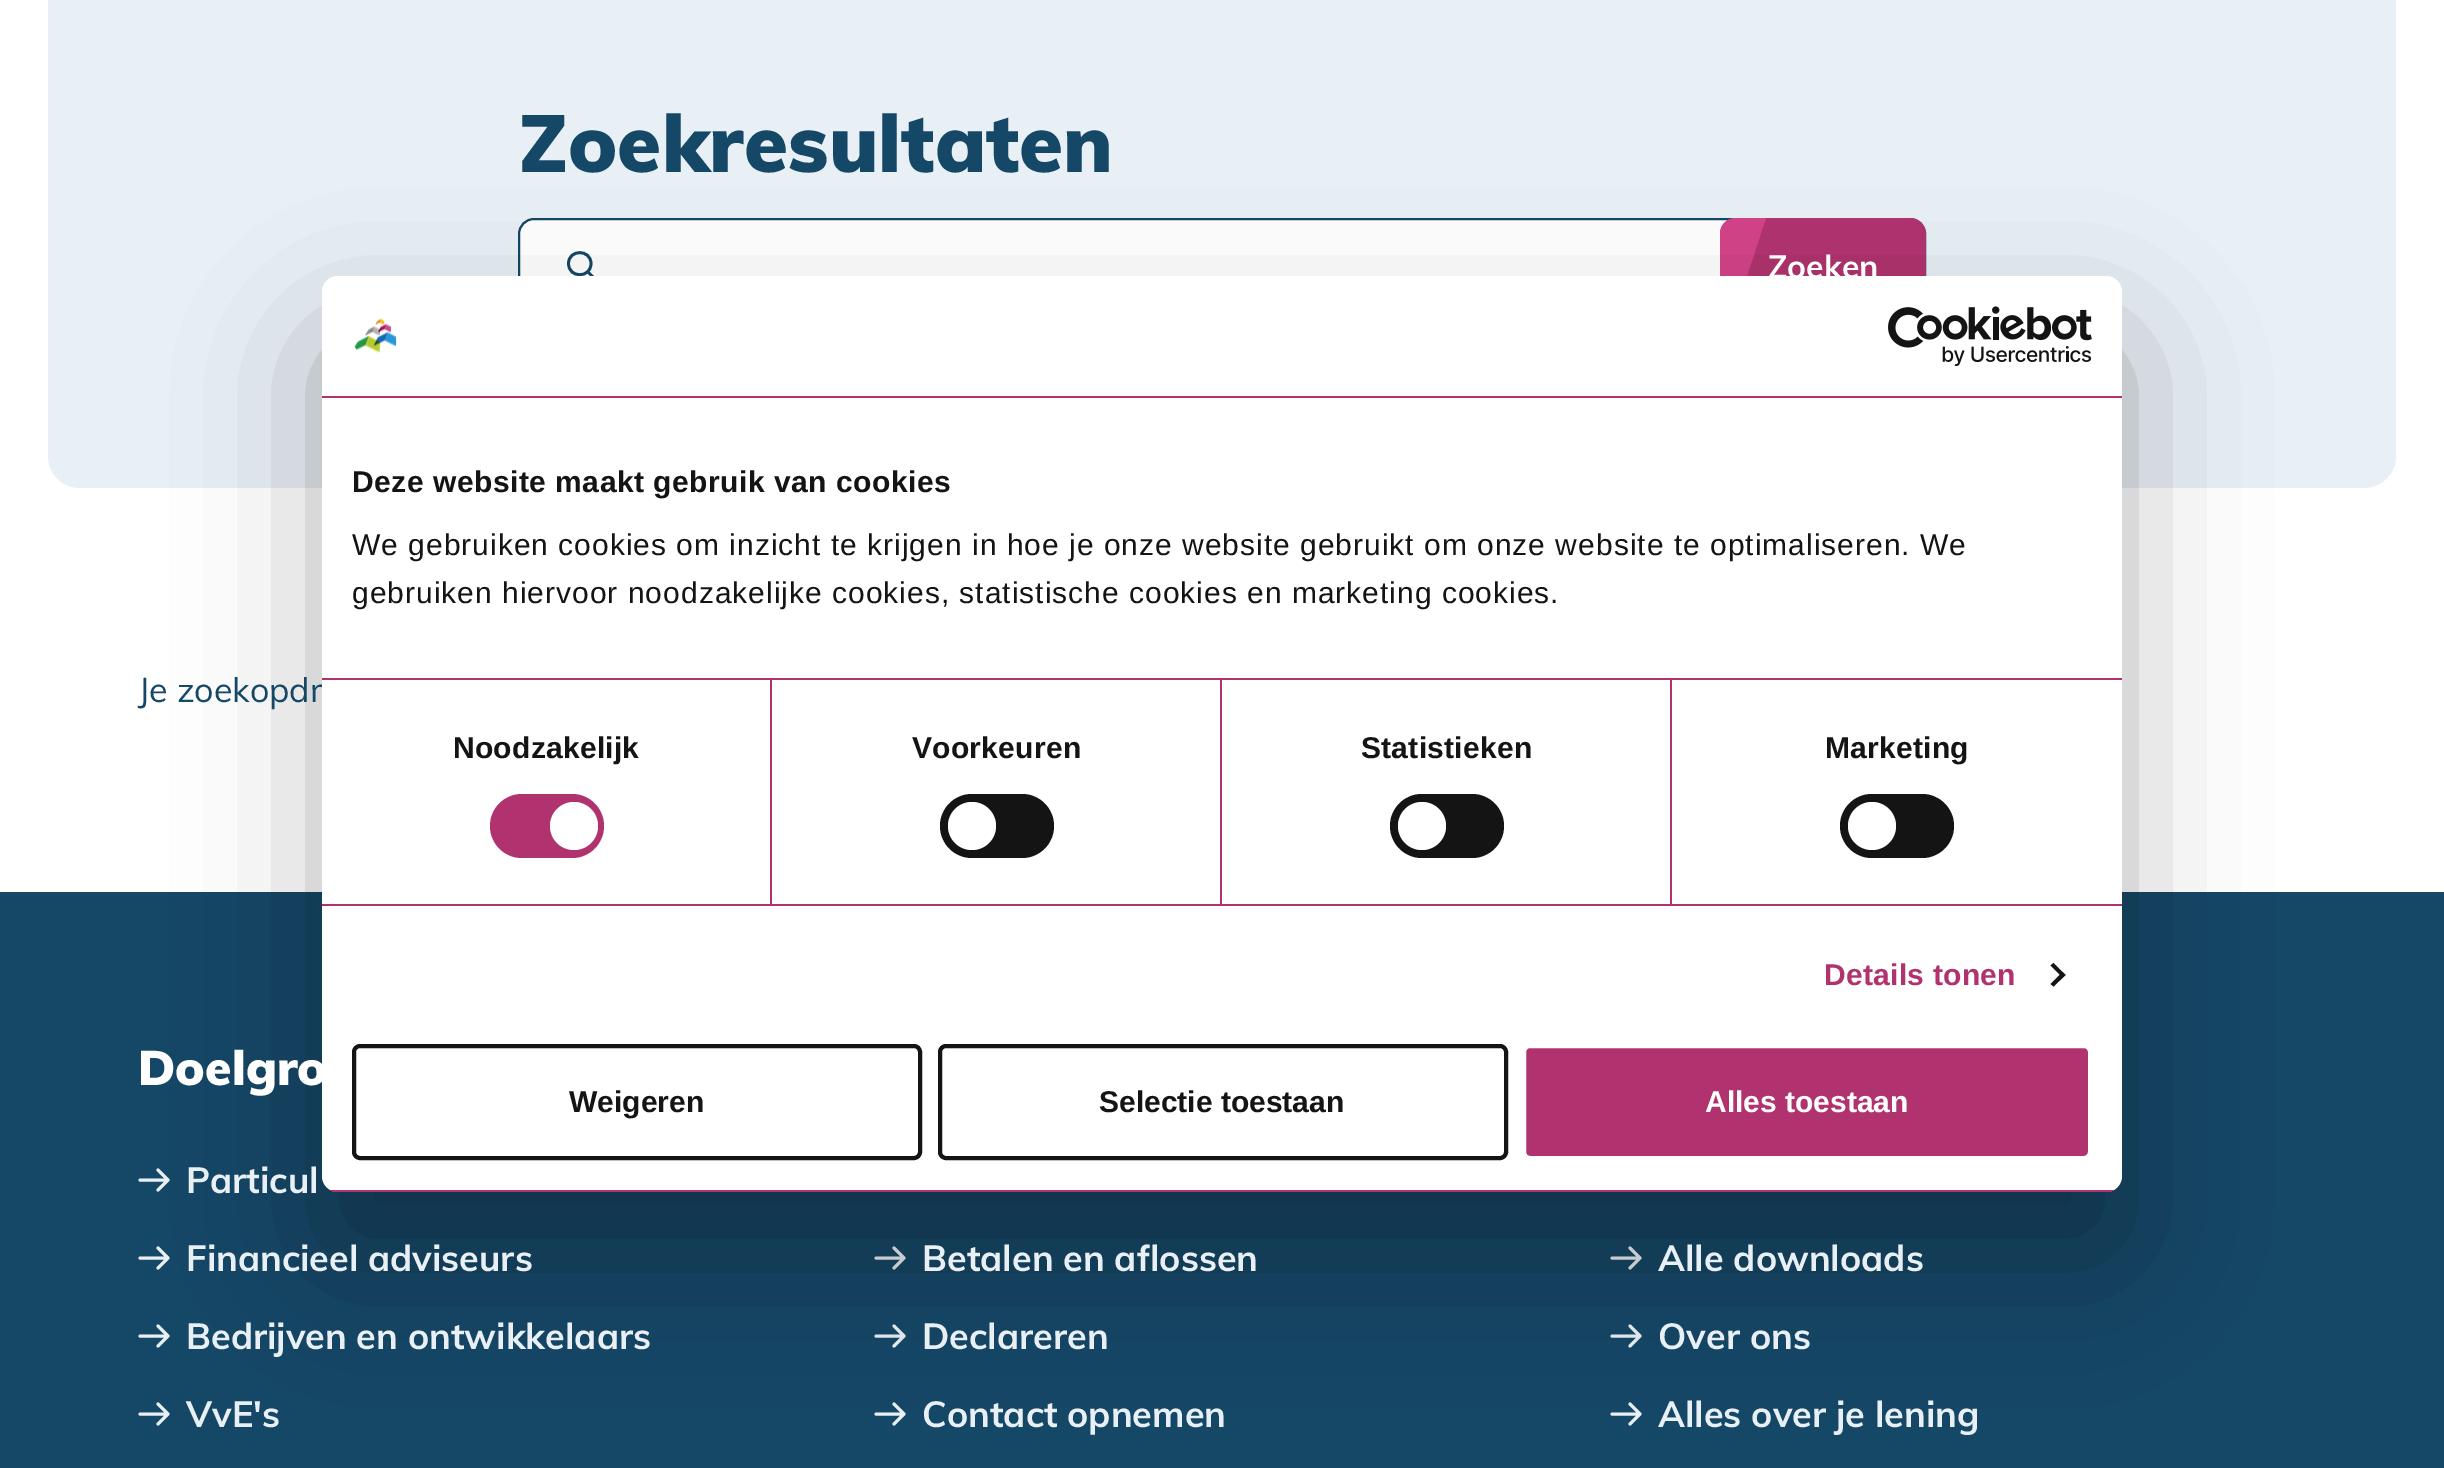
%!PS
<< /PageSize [2444 1468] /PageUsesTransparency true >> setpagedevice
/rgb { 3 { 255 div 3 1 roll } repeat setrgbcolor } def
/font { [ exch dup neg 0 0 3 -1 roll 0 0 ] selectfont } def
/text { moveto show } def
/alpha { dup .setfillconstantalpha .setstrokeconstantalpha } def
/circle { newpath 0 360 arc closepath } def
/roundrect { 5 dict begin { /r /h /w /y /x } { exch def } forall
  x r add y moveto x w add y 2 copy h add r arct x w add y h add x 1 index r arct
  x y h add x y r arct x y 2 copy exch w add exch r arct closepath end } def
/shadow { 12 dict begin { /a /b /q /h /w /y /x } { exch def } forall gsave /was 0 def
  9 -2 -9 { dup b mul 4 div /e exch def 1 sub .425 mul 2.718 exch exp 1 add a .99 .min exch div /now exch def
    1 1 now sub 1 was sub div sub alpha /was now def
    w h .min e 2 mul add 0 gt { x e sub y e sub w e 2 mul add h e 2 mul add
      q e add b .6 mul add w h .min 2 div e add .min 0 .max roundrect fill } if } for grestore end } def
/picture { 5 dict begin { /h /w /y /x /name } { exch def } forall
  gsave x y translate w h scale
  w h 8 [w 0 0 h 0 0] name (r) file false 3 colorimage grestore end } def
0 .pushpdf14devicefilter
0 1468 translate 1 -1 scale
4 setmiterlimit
255 255 255 rgb
0 0 2444 1468 rectfill
232 240 245 rgb
48 -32 2348 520 32 roundrect fill
255 255 255 rgb
519 219 1406 94 15 roundrect gsave fill grestore
21 71 102 rgb
2 setlinewidth
stroke
2.8 setlinewidth
1 setlinecap
1 setlinejoin
588 272 moveto 8.5 8.5 rlineto 591 263.5 moveto 0 15 -22.5 15 -22.5 0 rcurveto 0 -14.5 22.5 -14.5 22.5 0 rcurveto closepath stroke
176 51 111 rgb
1720 218 206 96 16 roundrect fill
211 68 137 rgb
1736 218 moveto 30 0 rlineto -23 70 rlineto -2 5 -6 8 -11 8 rcurveto -12 0 rlineto 0 -62 rlineto 0 -9 7 -16 16 -16 rcurveto closepath fill
21 71 102 rgb
0 892 2444 576 rectfill
232 240 245 rgb
3 setlinewidth
158 1170 moveto 10 10 rlineto 168 1180 moveto -10 10 rlineto 168 1180 moveto -28 0 rlineto stroke
158 1248 moveto 10 10 rlineto 168 1258 moveto -10 10 rlineto 168 1258 moveto -28 0 rlineto stroke
158 1326 moveto 10 10 rlineto 168 1336 moveto -10 10 rlineto 168 1336 moveto -28 0 rlineto stroke
158 1404 moveto 10 10 rlineto 168 1414 moveto -10 10 rlineto 168 1414 moveto -28 0 rlineto stroke
894 1248 moveto 10 10 rlineto 904 1258 moveto -10 10 rlineto 904 1258 moveto -28 0 rlineto stroke
894 1326 moveto 10 10 rlineto 904 1336 moveto -10 10 rlineto 904 1336 moveto -28 0 rlineto stroke
894 1404 moveto 10 10 rlineto 904 1414 moveto -10 10 rlineto 904 1414 moveto -28 0 rlineto stroke
1630 1248 moveto 10 10 rlineto 1640 1258 moveto -10 10 rlineto 1640 1258 moveto -28 0 rlineto stroke
1630 1326 moveto 10 10 rlineto 1640 1336 moveto -10 10 rlineto 1640 1336 moveto -28 0 rlineto stroke
1630 1404 moveto 10 10 rlineto 1640 1414 moveto -10 10 rlineto 1640 1414 moveto -28 0 rlineto stroke
0 0 0 rgb
322 340 1800 916 16 68 0.3 shadow
/Mulish-Black 80 font
21 71 102 rgb
(Zoekresultaten) 518 172 text
/Mulish-Bold 32 font
255 255 255 rgb
(Zoeken) 1768 278 text
/Mulish-Regular 34 font
21 71 102 rgb
(Je zoekopdr) 138 702 text
/Mulish-Black 48 font
255 255 255 rgb
(Doelgro) 138 1085 text
/Mulish-Bold 36 font
232 240 245 rgb
(Particul) 186 1193 text
(Financieel adviseurs) 186 1271 text
(Bedrijven en ontwikkelaars) 186 1349 text
(VvE's) 186 1427 text
(Betalen en aflossen) 922 1271 text
(Declareren) 922 1349 text
(Contact opnemen) 922 1427 text
(Alle downloads) 1658 1271 text
(Over ons) 1658 1349 text
(Alles over je lening) 1658 1427 text
255 255 255 rgb
322 276 1800 916 16 roundrect fill
176 51 111 rgb
322 396 1800 2 rectfill
(img_01.rgb) 354 318 43 36 picture
(img_02.rgb) 1888 306 204 60 picture
322 678 1800 2 rectfill
/LiberationSans-Bold 30 font
20 20 20 rgb
352 492 moveto 0.5 0 (Deze website maakt gebruik van cookies) ashow
/LiberationSans-Regular 30 font
352 555 moveto 1 0 (We gebruiken cookies om inzicht te krijgen in hoe je onze website gebruikt om onze website te optimaliseren. We) ashow
352 603 moveto 1 0 (gebruiken hiervoor noodzakelijke cookies, statistische cookies en marketing cookies.) ashow
176 51 111 rgb
322 904 1800 2 rectfill
770 680 2 224 rectfill
/LiberationSans-Bold 30 font
20 20 20 rgb
453 758 moveto 0.25 0 (Noodzakelijk) ashow
176 51 111 rgb
490 794 114 64 32 roundrect fill
255 255 255 rgb
574 826 24 circle fill
176 51 111 rgb
1220 680 2 224 rectfill
20 20 20 rgb
912 758 moveto 0.25 0 (Voorkeuren) ashow
940 794 114 64 32 roundrect fill
255 255 255 rgb
972 826 24 circle fill
176 51 111 rgb
1670 680 2 224 rectfill
20 20 20 rgb
1361 758 moveto 0.25 0 (Statistieken) ashow
1390 794 114 64 32 roundrect fill
255 255 255 rgb
1422 826 24 circle fill
20 20 20 rgb
1825 758 moveto 0.25 0 (Marketing) ashow
1840 794 114 64 32 roundrect fill
255 255 255 rgb
1872 826 24 circle fill
176 51 111 rgb
1824 985 moveto 0.25 0 (Details tonen) ashow
20 20 20 rgb
2053.5 963 moveto 12 12 rlineto -3 2.5 rlineto -12 -12 rlineto closepath fill
2062.5 972 moveto 3 3 rlineto -12 11.5 rlineto -3 -2.5 rlineto closepath fill
gsave
322 276 1800 916 16 roundrect clip newpath
176 51 111 rgb
322 1190 1800 2 rectfill
grestore
4 setlinewidth
0 setlinecap
0 setlinejoin
354 1046 566 112 6 roundrect stroke
(Weigeren) 569 1112 text
940 1046 566 112 6 roundrect stroke
(Selectie toestaan) 1099 1112 text
176 51 111 rgb
1524 1046 566 112 6 roundrect gsave fill grestore
255 255 255 rgb
stroke
(Alles toestaan) 1705 1112 text
.poppdf14devicefilter showpage
